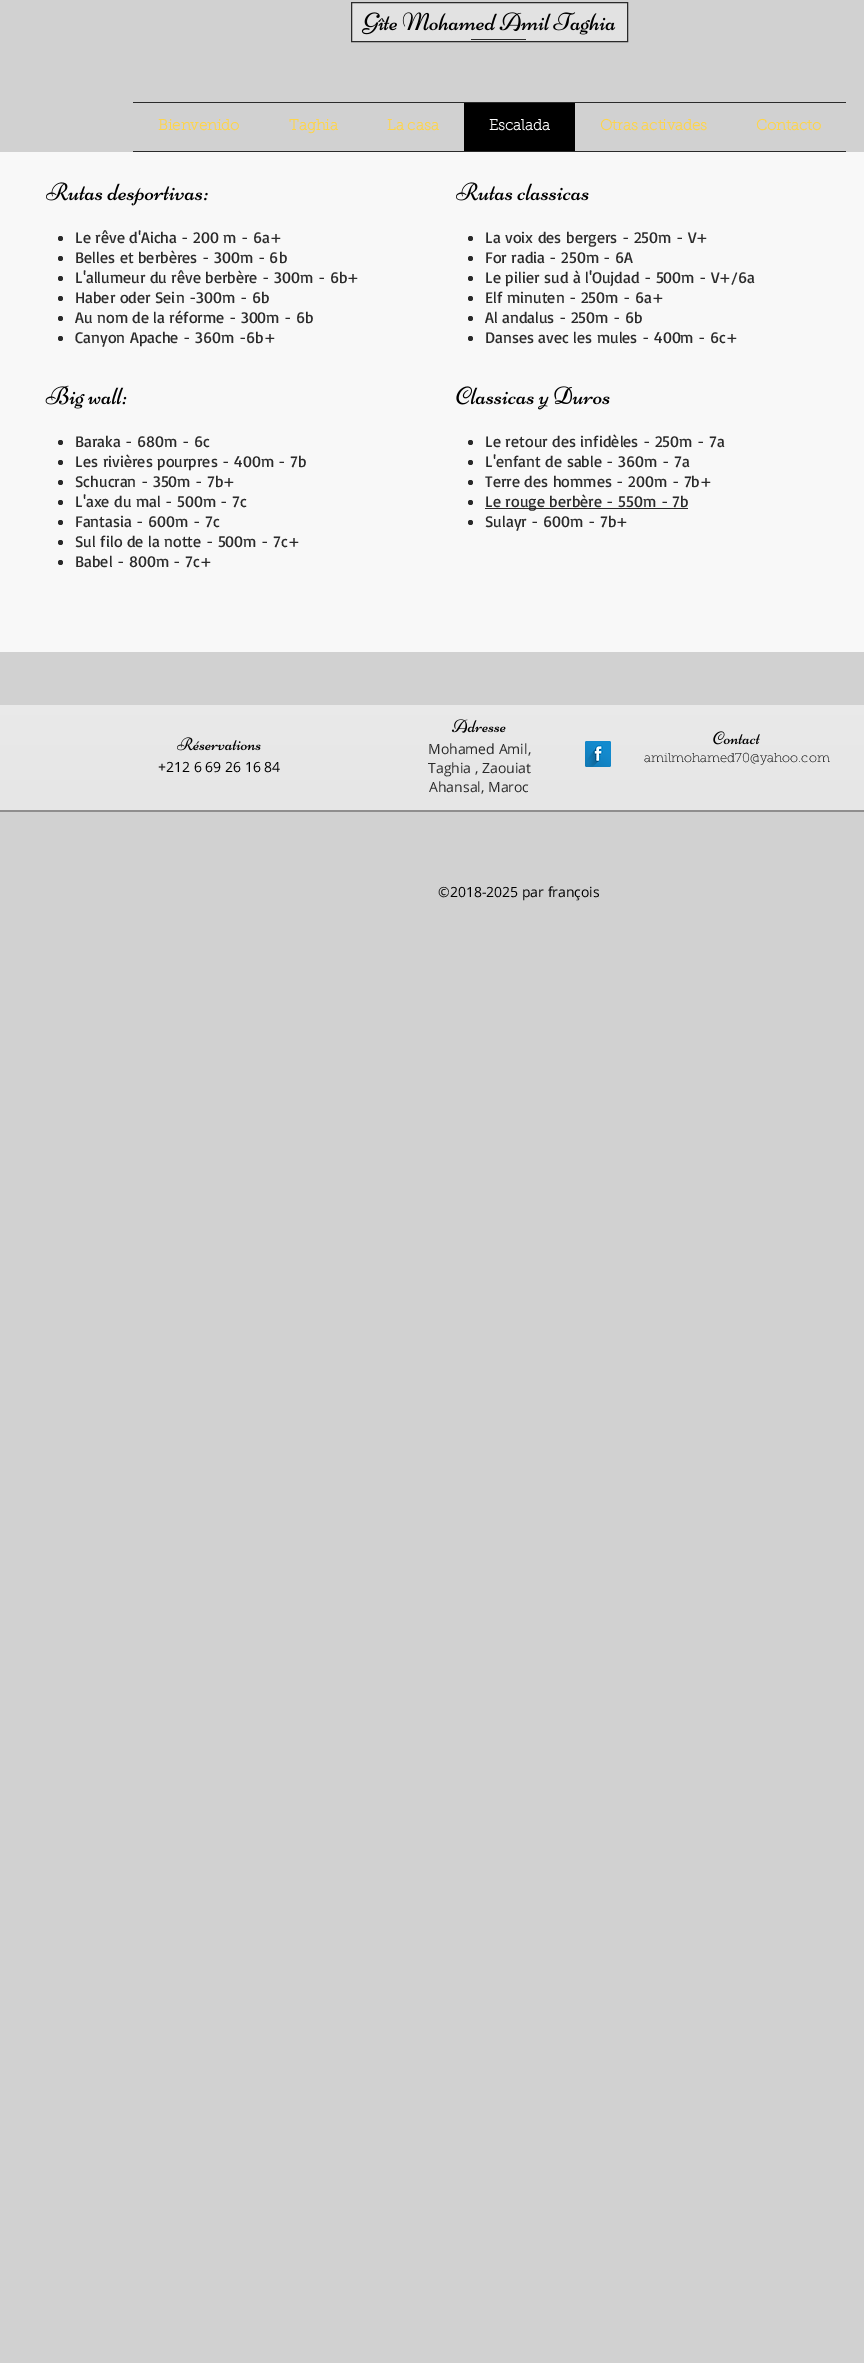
%!PS
<< /PageSize [864 2363] >> setpagedevice
/rgb { 3 { 255 div 3 1 roll } repeat setrgbcolor } def
/font { [ exch dup neg 0 0 3 -1 roll 0 0 ] selectfont } def
/text { moveto show } def
/circle { newpath 0 360 arc closepath } def
/picture { 5 dict begin { /h /w /y /x /name } { exch def } forall
  gsave x y translate w h scale
  w h 8 [w 0 0 h 0 0] name (r) file false 3 colorimage grestore end } def
0 2363 translate 1 -1 scale
4 setmiterlimit
209 209 209 rgb
0 0 864 2363 rectfill
226 226 226 rgb
351.5 2.5 moveto 276 0 rlineto 0 39 rlineto -276 0 rlineto closepath gsave fill grestore
42 42 42 rgb
stroke
471 39 55 1 rectfill
(img_01.rgb) 361 12 255 23 picture
133 102 713 1 rectfill
133 151 713 1 rectfill
0 0 0 rgb
464 103 111 48 rectfill
248 248 248 rgb
0 152 864 500 rectfill
(img_02.rgb) 46 182 162 24 picture
42 42 42 rgb
60.5 238.5 2.5 circle fill
60.5 258.5 2.5 circle fill
60.5 278.5 2.5 circle fill
60.5 298.5 2.5 circle fill
60.5 318.5 2.5 circle fill
60.5 338.5 2.5 circle fill
(img_03.rgb) 456 182 133 19 picture
470.5 238.5 2.5 circle fill
470.5 258.5 2.5 circle fill
470.5 278.5 2.5 circle fill
470.5 298.5 2.5 circle fill
470.5 318.5 2.5 circle fill
470.5 338.5 2.5 circle fill
(img_04.rgb) 45 385 82 24 picture
60.5 442.5 2.5 circle fill
60.5 462.5 2.5 circle fill
60.5 482.5 2.5 circle fill
60.5 502.5 2.5 circle fill
60.5 522.5 2.5 circle fill
60.5 542.5 2.5 circle fill
60.5 562.5 2.5 circle fill
(img_05.rgb) 456 386 154 24 picture
470.5 442.5 2.5 circle fill
470.5 462.5 2.5 circle fill
470.5 482.5 2.5 circle fill
470.5 502.5 2.5 circle fill
485 508 203 1 rectfill
470.5 522.5 2.5 circle fill
225 225 225 rgb
0 705 864 105 rectfill
143 142 142 rgb
0 810 864 2 rectfill
(img_06.rgb) 0 705 864 105 picture
(img_07.rgb) 451 719 55 14 picture
(img_08.rgb) 585 741 26 26 picture
(img_09.rgb) 713 731 47 14 picture
(img_10.rgb) 177 737 84 14 picture
/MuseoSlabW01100-Bold 15 font
255 213 74 rgb
(Bienvenido) 158 130 text
(Taghia) 289 130 text
(La casa) 387 130 text
253 253 254 rgb
(Escalada) 489 130 text
255 213 74 rgb
(Otras activades) 600 130 text
(Contacto) 756 130 text
/Basic-Regular 16 font
42 42 42 rgb
(Le rêve d'Aicha - 200 m - 6a+) 75 243 text
(Belles et berbères - 300m - 6b) 75 263 text
(L'allumeur du rêve berbère - 300m - 6b+) 75 283 text
(Haber oder Sein -300m - 6b) 75 303 text
(Au nom de la réforme - 300m - 6b) 75 323 text
(Canyon Apache - 360m -6b+) 75 343 text
(La voix des bergers - 250m - V+) 485 243 text
(For radia - 250m - 6A) 485 263 text
(Le pilier sud à l'Oujdad - 500m - V+/6a) 485 283 text
(Elf minuten - 250m - 6a+) 485 303 text
(Al andalus - 250m - 6b) 485 323 text
(Danses avec les mules - 400m - 6c+) 485 343 text
(Baraka - 680m - 6c) 75 447 text
(Les rivières pourpres - 400m - 7b) 75 467 text
(Schucran - 350m - 7b+) 75 487 text
(L'axe du mal - 500m - 7c) 75 507 text
(Fantasia - 600m - 7c) 75 527 text
(Sul filo de la notte - 500m - 7c+) 75 547 text
(Babel - 800m - 7c+) 75 567 text
(Le retour des infidèles - 250m - 7a) 485 447 text
(L'enfant de sable - 360m - 7a) 485 467 text
(Terre des hommes - 200m - 7b+) 485 487 text
(Le rouge berbère - 550m - 7b) 485 507 text
(Sulayr - 600m - 7b+) 485 527 text
/OpenSans-Regular 14 font
(Mohamed Amil,) 428 754 text
(Taghia , Zaouiat) 428 773 text
(Ahansal, Maroc) 429 792 text
/MuseoSlabW01100-Thin 13 font
0 0 0 rgb
(amilmohamed70@yahoo.com) 644 762 text
/OpenSans-Regular 14 font
(+212 6 69 26 16 84) 158 772 text
(©2018-2025 par françois) 438 897 text
showpage
